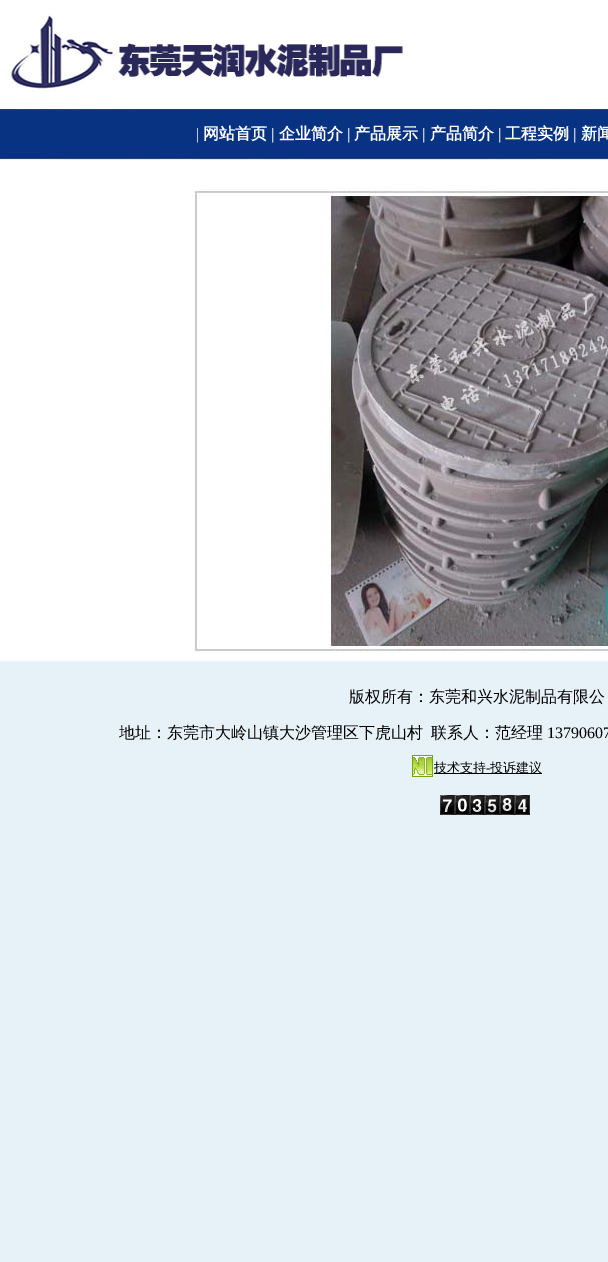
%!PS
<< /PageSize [608 1262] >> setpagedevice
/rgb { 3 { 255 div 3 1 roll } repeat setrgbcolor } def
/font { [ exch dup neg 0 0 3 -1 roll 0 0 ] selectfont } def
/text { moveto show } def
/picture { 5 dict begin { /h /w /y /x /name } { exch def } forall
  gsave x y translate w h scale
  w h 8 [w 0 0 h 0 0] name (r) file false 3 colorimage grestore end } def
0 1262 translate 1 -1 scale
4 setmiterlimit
255 255 255 rgb
0 0 608 1262 rectfill
(img_01.rgb) 0 109 608 1153 picture
(img_02.rgb) 0 0 608 109 picture
0 160 608 501 rectfill
(img_03.rgb) 194 189 414 465 picture
(img_04.rgb) 412 755 21 22 picture
0 0 0 rgb
434 773 108 1 rectfill
(img_05.rgb) 440 795 15 20 picture
(img_06.rgb) 455 795 15 20 picture
(img_07.rgb) 470 795 15 20 picture
(img_08.rgb) 485 795 15 20 picture
(img_09.rgb) 500 795 15 20 picture
(img_10.rgb) 515 795 15 20 picture
/LiberationSerif-Regular 16 font
255 255 255 rgb
(|) 196 139 text
/WenQuanYiZenHei-Bold 16 font
(网站首页) 203 139 text
/LiberationSerif-Bold 16 font
(|) 271 139 text
/WenQuanYiZenHei-Bold 16 font
(企业简介) 279 139 text
/LiberationSerif-Bold 16 font
(|) 347 139 text
/WenQuanYiZenHei-Bold 16 font
(产品展示) 354 139 text
/LiberationSerif-Bold 16 font
(|) 422 139 text
/WenQuanYiZenHei-Bold 16 font
(产品简介) 430 139 text
/LiberationSerif-Bold 16 font
(|) 498 139 text
/WenQuanYiZenHei-Bold 16 font
(工程实例) 505 139 text
/LiberationSerif-Bold 16 font
(|) 573 139 text
/WenQuanYiZenHei-Bold 16 font
(新闻) 581 139 text
/WenQuanYiZenHei-Medium 16 font
0 0 0 rgb
(版权所有：东莞和兴水泥制品有限公) 349 702 text
(地址：东莞市大岭山镇大沙管理区下虎山村) 119 738 text
(联系人：范经理) 431 738 text
/LiberationSerif-Regular 16 font
(13790607) 547 738 text
/WenQuanYiZenHei-Medium 13 font
(技术支持) 434 772 text
/LiberationSerif-Regular 13 font
(-) 486 772 text
/WenQuanYiZenHei-Medium 13 font
(投诉建议) 490 772 text
showpage
